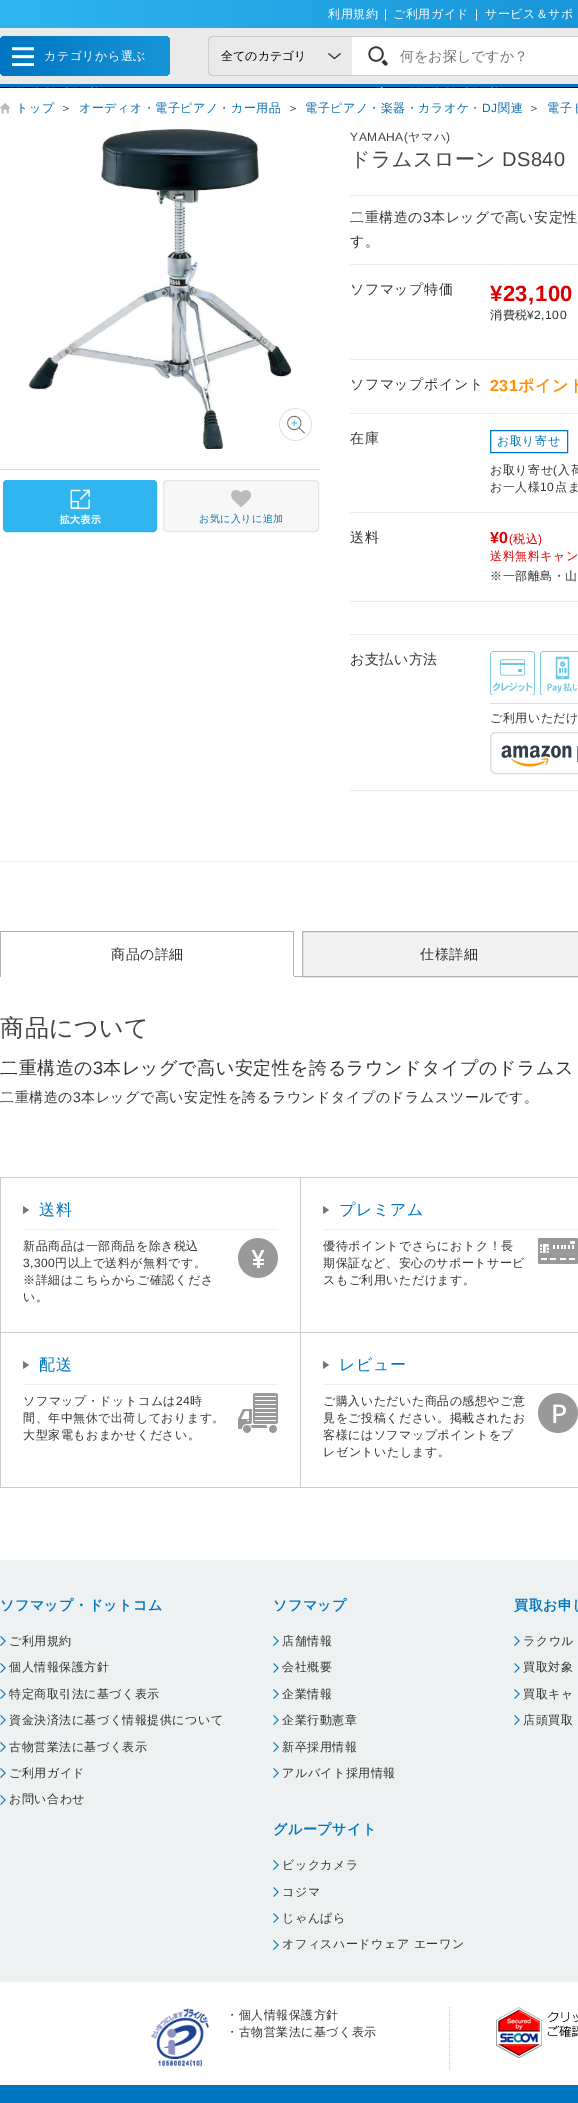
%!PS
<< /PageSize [578 2103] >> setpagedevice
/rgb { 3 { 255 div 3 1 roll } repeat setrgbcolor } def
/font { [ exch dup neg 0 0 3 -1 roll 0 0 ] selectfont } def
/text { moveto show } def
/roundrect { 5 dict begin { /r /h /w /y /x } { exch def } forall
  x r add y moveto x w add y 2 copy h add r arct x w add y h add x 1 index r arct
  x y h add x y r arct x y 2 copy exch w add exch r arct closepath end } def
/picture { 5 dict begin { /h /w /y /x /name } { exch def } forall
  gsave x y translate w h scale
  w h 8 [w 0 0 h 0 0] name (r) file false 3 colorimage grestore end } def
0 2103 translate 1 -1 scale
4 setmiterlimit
255 255 255 rgb
0 0 578 2103 rectfill
gsave 0 0 moveto 578 0 rlineto 0 28 rlineto -578 0 rlineto closepath clip newpath
<< /ShadingType 2 /ColorSpace /DeviceRGB /Coords [0 14 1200 14] /Extend [true true] /Function << /FunctionType 2 /Domain [0 1] /C0 [0.188 0.71 0.937] /C1 [0 0.459 0.757] /N 1 >> >> shfill grestore
234 234 234 rgb
0 28 578 56 rectfill
0 117 193 rgb
0 84 578 3 rectfill
gsave 0 36 170 40 5 roundrect clip newpath
<< /ShadingType 2 /ColorSpace /DeviceRGB /Coords [170 56 0 56] /Extend [true true] /Function << /FunctionType 2 /Domain [0 1] /C0 [0.094 0.584 0.847] /C1 [0 0.459 0.757] /N 1 >> >> shfill grestore
(img_01.rgb) 12 47 22 19 picture
51 51 51 rgb
340.5 53.5 moveto -6 5 rlineto -6 -5 rlineto stroke
204 204 204 rgb
213 36 moveto 139 0 rlineto 0 40 rlineto -139 0 rlineto -3 0 -5 -2 -5 -5 rcurveto 0 -30 rlineto 0 -3 2 -5 5 -5 rcurveto closepath 213 37 moveto 139 0 rlineto 0 38 rlineto -139 0 rlineto -2 0 -4 -2 -4 -4 rcurveto 0 -30 rlineto 0 -2 2 -4 4 -4 rcurveto closepath eofill
255 255 255 rgb
352 37 226 38 rectfill
(img_02.rgb) 368 46 20 20 picture
204 204 204 rgb
352 36 226 1 rectfill
352 75 226 1 rectfill
(img_03.rgb) 0 87 578 1 picture
(img_04.rgb) 0 103 10 11 picture
(img_05.rgb) 28 129 264 320 picture
(img_06.rgb) 279 408 33 33 picture
221 221 221 rgb
0 469 320 1 rectfill
48 181 239 rgb
3.5 480.5 153 51 3.5 roundrect gsave fill grestore
stroke
(img_07.rgb) 59 489 42 36 picture
247 247 247 rgb
163.5 480.5 155 51 3.5 roundrect gsave fill grestore
229 229 229 rgb
stroke
(img_08.rgb) 231 490 20 17 picture
235 235 235 rgb
350 195 228 1 rectfill
350 264 228 1 rectfill
350 359 228 1 rectfill
350 413 228 1 rectfill
350 512 228 1 rectfill
0 117 193 rgb
490.5 430.5 77 22 rectstroke
235 235 235 rgb
350 601 228 1 rectfill
350 634 228 1 rectfill
350 790 228 1 rectfill
(img_09.rgb) 490 651 45 44 picture
(img_10.rgb) 540 651 38 44 picture
221 221 221 rgb
490 703 88 1 rectfill
490.5 732.5 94 41 5.5 roundrect stroke
(img_11.rgb) 501 745 77 22 picture
238 238 238 rgb
0 861 578 1 rectfill
178 178 178 rgb
294 976 8 1 rectfill
0 931 294 1 rectfill
293 931 1 46 rectfill
255 255 255 rgb
293 976 1 1 rectfill
178 178 178 rgb
0 931 1 46 rectfill
242 242 242 rgb
302.5 931.5 moveto 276 0 rlineto 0 45 rlineto -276 0 rlineto closepath gsave fill grestore
178 178 178 rgb
stroke
204 204 204 rgb
0 1177 578 1 rectfill
0 1177 1 311 rectfill
300 1178 1 310 rectfill
1 1332 577 1 rectfill
238 238 238 rgb
23 1229 255 1 rectfill
119 119 119 rgb
23 1214 moveto 0 -8 rlineto 6 4 rlineto closepath fill
(img_12.rgb) 238 1238 40 40 picture
238 238 238 rgb
323 1229 255 1 rectfill
119 119 119 rgb
323 1214 moveto 0 -8 rlineto 6 4 rlineto closepath fill
(img_13.rgb) 538 1238 40 26 picture
204 204 204 rgb
1 1487 577 1 rectfill
238 238 238 rgb
23 1384 255 1 rectfill
119 119 119 rgb
23 1369 moveto 0 -8 rlineto 6 4 rlineto closepath fill
(img_14.rgb) 238 1393 40 40 picture
238 238 238 rgb
323 1384 255 1 rectfill
119 119 119 rgb
323 1369 moveto 0 -8 rlineto 6 4 rlineto closepath fill
(img_15.rgb) 538 1393 40 40 picture
237 241 242 rgb
0 1560 578 422 rectfill
(img_16.rgb) 0 1636 6 10 picture
(img_16.rgb) 0 1663 6 10 picture
(img_16.rgb) 0 1689 6 10 picture
(img_16.rgb) 0 1715 6 10 picture
(img_16.rgb) 0 1742 6 10 picture
(img_16.rgb) 0 1768 6 10 picture
(img_16.rgb) 0 1795 6 10 picture
(img_16.rgb) 273 1636 6 10 picture
(img_16.rgb) 273 1663 6 10 picture
(img_16.rgb) 273 1689 6 10 picture
(img_16.rgb) 273 1715 6 10 picture
(img_16.rgb) 273 1742 6 10 picture
(img_16.rgb) 273 1768 6 10 picture
(img_16.rgb) 273 1860 6 10 picture
(img_16.rgb) 273 1887 6 10 picture
(img_16.rgb) 273 1913 6 10 picture
(img_16.rgb) 273 1940 6 10 picture
(img_16.rgb) 514 1636 6 10 picture
(img_16.rgb) 514 1663 6 10 picture
(img_16.rgb) 514 1689 6 10 picture
(img_16.rgb) 514 1715 6 10 picture
(img_17.rgb) 151 2008 59 59 picture
204 204 204 rgb
[1 1] 0 setdash
449.5 2007 moveto 0 63 rlineto stroke
(img_18.rgb) 496 2007 82 51 picture
0 117 193 rgb
0 2085 578 18 rectfill
/WenQuanYiZenHei-Medium 12 font
255 255 255 rgb
328 18 moveto 0.5 0 (利用規約) ashow
/LiberationSans-Regular 12 font
384 18 moveto 0.5 0 (|) ashow
/WenQuanYiZenHei-Medium 12 font
393 18 moveto 0.5 0 (ご利用ガイド) ashow
/LiberationSans-Regular 12 font
475 18 moveto 0.5 0 (|) ashow
/WenQuanYiZenHei-Medium 12 font
485 18 moveto 0.5 0 (サービス＆サポ) ashow
44 60 moveto 0.5 0 (カテゴリから選ぶ) ashow
0 0 0 rgb
(全てのカテゴリ) 221 60 text
/WenQuanYiZenHei-Medium 14 font
117 117 117 rgb
(何をお探しですか？) 400 61 text
/WenQuanYiZenHei-Medium 12 font
6 110 179 rgb
16 112 moveto 0.5 0 (トップ) ashow
51 51 51 rgb
60 112 moveto 0.5 0 (＞) ashow
6 110 179 rgb
79 112 moveto 0.5 0 (オーディオ・電子ピアノ・カー用品) ashow
51 51 51 rgb
287 112 moveto 0.5 0 (＞) ashow
6 110 179 rgb
305 112 moveto 0.5 0 (電子ピアノ・楽器・カラオケ・) ashow
/LiberationSans-Regular 12 font
482 112 moveto 0.5 0 (DJ) ashow
/WenQuanYiZenHei-Medium 12 font
498 112 moveto 0.5 0 (関連) ashow
51 51 51 rgb
528 112 moveto 0.5 0 (＞) ashow
6 110 179 rgb
547 112 moveto 0.5 0 (電子ド) ashow
/WenQuanYiZenHei-Medium 10 font
199 522 moveto 0.5 0 (お気に入りに追加) ashow
/LiberationSans-Regular 12 font
68 68 68 rgb
350 141 moveto 0.5 0 (YAMAHA\() ashow
/WenQuanYiZenHei-Medium 12 font
408 141 moveto 0.5 0 (ヤマハ) ashow
/LiberationSans-Regular 12 font
446 141 moveto 0.5 0 (\)) ashow
/WenQuanYiZenHei-Medium 20 font
350 166 moveto 0.5 0 (ドラムスローン) ashow
/LiberationSans-Regular 20 font
502 166 moveto 0.5 0 (DS840) ashow
/WenQuanYiZenHei-Medium 14 font
51 51 51 rgb
350 222 moveto 0.5 0 (二重構造の) ashow
/LiberationSans-Regular 14 font
423 222 moveto 0.5 0 (3) ashow
/WenQuanYiZenHei-Medium 14 font
431 222 moveto 0.5 0 (本レッグで高い安定性) ashow
350 246 moveto 0.5 0 (す。) ashow
350 294 moveto 0.5 0 (ソフマップ特価) ashow
/LiberationSans-Bold 22 font
221 0 0 rgb
490 301 moveto 0.5 0 (¥23,100) ashow
/WenQuanYiZenHei-Medium 12 font
51 51 51 rgb
490 319 moveto 0.5 0 (消費税) ashow
/LiberationSans-Regular 12 font
527 319 moveto 0.5 0 (¥2,100) ashow
/WenQuanYiZenHei-Medium 14 font
350 389 moveto 0.5 0 (ソフマップポイント) ashow
/LiberationSans-Bold 16 font
255 144 0 rgb
490 391 moveto 0.5 0 (231) ashow
/WenQuanYiZenHei-Bold 16 font
518 391 moveto 0.5 0 (ポイント) ashow
/WenQuanYiZenHei-Medium 14 font
51 51 51 rgb
350 443 moveto 0.5 0 (在庫) ashow
/WenQuanYiZenHei-Medium 12 font
0 117 193 rgb
497 445 moveto 0.5 0 (お取り寄せ) ashow
51 51 51 rgb
490 474 moveto 0.5 0 (お取り寄せ) ashow
/LiberationSans-Regular 12 font
553 474 moveto 0.5 0 (\() ashow
/WenQuanYiZenHei-Medium 12 font
558 474 moveto 0.5 0 (入荷) ashow
490 491 moveto 0.5 0 (お一人様) ashow
/LiberationSans-Regular 12 font
540 491 moveto 0.5 0 (10) ashow
/WenQuanYiZenHei-Medium 12 font
555 491 moveto 0.5 0 (点ま) ashow
/WenQuanYiZenHei-Medium 14 font
350 542 moveto 0.5 0 (送料) ashow
/LiberationSans-Bold 16 font
221 0 0 rgb
490 543 moveto 0.5 0 (¥0) ashow
/LiberationSans-Regular 12 font
509 543 moveto 0.5 0 (\() ashow
/WenQuanYiZenHei-Medium 12 font
513 543 moveto 0.5 0 (税込) ashow
/LiberationSans-Regular 12 font
538 543 moveto 0.5 0 (\)) ashow
/WenQuanYiZenHei-Medium 12 font
490 560 moveto 0.5 0 (送料無料キャン) ashow
51 51 51 rgb
490 580 moveto 0.5 0 (※一部離島・山) ashow
/WenQuanYiZenHei-Medium 14 font
350 664 moveto 0.5 0 (お支払い方法) ashow
/WenQuanYiZenHei-Medium 12 font
490 722 moveto 0.5 0 (ご利用いただけ) ashow
/WenQuanYiZenHei-Medium 14 font
111 959 moveto 0.5 0 (商品の詳細) ashow
420 959 moveto 0.5 0 (仕様詳細) ashow
/WenQuanYiZenHei-Medium 24 font
68 68 68 rgb
0 1036 moveto 0.5 0 (商品について) ashow
/WenQuanYiZenHei-Medium 18 font
51 51 51 rgb
0 1074 moveto 0.5 0 (二重構造の) ashow
/LiberationSans-Regular 18 font
93 1074 moveto 0.5 0 (3) ashow
/WenQuanYiZenHei-Medium 18 font
103 1074 moveto 0.5 0 (本レッグで高い安定性を誇るラウンドタイプのドラムス) ashow
/WenQuanYiZenHei-Medium 14 font
0 1102 moveto 0.5 0 (二重構造の) ashow
/LiberationSans-Regular 14 font
73 1102 moveto 0.5 0 (3) ashow
/WenQuanYiZenHei-Medium 14 font
81 1102 moveto 0.5 0 (本レッグで高い安定性を誇るラウンドタイプのドラムスツールです。) ashow
/WenQuanYiZenHei-Medium 16 font
0 117 193 rgb
39 1215 moveto 0.5 0 (送料) ashow
/WenQuanYiZenHei-Medium 12 font
51 51 51 rgb
23 1250 moveto 0.5 0 (新品商品は一部商品を除き税込) ashow
/LiberationSans-Regular 12 font
23 1267 moveto 0.5 0 (3,300) ashow
/WenQuanYiZenHei-Medium 12 font
55 1267 moveto 0.5 0 (円以上で送料が無料です。) ashow
23 1284 moveto 0.5 0 (※詳細はこちらからご確認くださ) ashow
23 1301 moveto 0.5 0 (い。) ashow
/WenQuanYiZenHei-Medium 16 font
0 117 193 rgb
339 1215 moveto 0.5 0 (プレミアム) ashow
/WenQuanYiZenHei-Medium 12 font
51 51 51 rgb
323 1250 moveto 0.5 0 (優待ポイントでさらにおトク！長) ashow
323 1267 moveto 0.5 0 (期保証など、安心のサポートサービ) ashow
323 1284 moveto 0.5 0 (スもご利用いただけます。) ashow
/WenQuanYiZenHei-Medium 16 font
0 117 193 rgb
39 1370 moveto 0.5 0 (配送) ashow
/WenQuanYiZenHei-Medium 12 font
51 51 51 rgb
23 1405 moveto 0.5 0 (ソフマップ・ドットコムは) ashow
/LiberationSans-Regular 12 font
176 1405 moveto 0.5 0 (24) ashow
/WenQuanYiZenHei-Medium 12 font
190 1405 moveto 0.5 0 (時) ashow
23 1422 moveto 0.5 0 (間、年中無休で出荷しております。) ashow
23 1439 moveto 0.5 0 (大型家電もおまかせください。) ashow
/WenQuanYiZenHei-Medium 16 font
0 117 193 rgb
339 1370 moveto 0.5 0 (レビュー) ashow
/WenQuanYiZenHei-Medium 12 font
51 51 51 rgb
323 1405 moveto 0.5 0 (ご購入いただいた商品の感想やご意) ashow
323 1422 moveto 0.5 0 (見をご投稿ください。掲載されたお) ashow
323 1439 moveto 0.5 0 (客様にはソフマップポイントをプ) ashow
323 1456 moveto 0.5 0 (レゼントいたします。) ashow
/WenQuanYiZenHei-Bold 14 font
0 117 193 rgb
0 1610 moveto 0.5 0 (ソフマップ・ドットコム) ashow
/WenQuanYiZenHei-Medium 12 font
51 51 51 rgb
9 1645 moveto 0.5 0 (ご利用規約) ashow
9 1671 moveto 0.5 0 (個人情報保護方針) ashow
9 1698 moveto 0.5 0 (特定商取引法に基づく表示) ashow
9 1724 moveto 0.5 0 (資金決済法に基づく情報提供について) ashow
9 1751 moveto 0.5 0 (古物営業法に基づく表示) ashow
9 1777 moveto 0.5 0 (ご利用ガイド) ashow
9 1803 moveto 0.5 0 (お問い合わせ) ashow
/WenQuanYiZenHei-Bold 14 font
0 117 193 rgb
273 1610 moveto 0.5 0 (ソフマップ) ashow
/WenQuanYiZenHei-Medium 12 font
51 51 51 rgb
282 1645 moveto 0.5 0 (店舗情報) ashow
282 1671 moveto 0.5 0 (会社概要) ashow
282 1698 moveto 0.5 0 (企業情報) ashow
282 1724 moveto 0.5 0 (企業行動憲章) ashow
282 1751 moveto 0.5 0 (新卒採用情報) ashow
282 1777 moveto 0.5 0 (アルバイト採用情報) ashow
/WenQuanYiZenHei-Bold 14 font
0 117 193 rgb
273 1834 moveto 0.5 0 (グループサイト) ashow
/WenQuanYiZenHei-Medium 12 font
51 51 51 rgb
282 1869 moveto 0.5 0 (ビックカメラ) ashow
282 1896 moveto 0.5 0 (コジマ) ashow
282 1922 moveto 0.5 0 (じゃんぱら) ashow
282 1948 moveto 0.5 0 (オフィスハードウェア エーワン) ashow
/WenQuanYiZenHei-Bold 14 font
0 117 193 rgb
514 1610 moveto 0.5 0 (買取お申し) ashow
/WenQuanYiZenHei-Medium 12 font
51 51 51 rgb
523 1645 moveto 0.5 0 (ラクウル) ashow
523 1671 moveto 0.5 0 (買取対象) ashow
523 1698 moveto 0.5 0 (買取キャ) ashow
523 1724 moveto 0.5 0 (店頭買取) ashow
226 2019 moveto 0.5 0 (・個人情報保護方針) ashow
226 2036 moveto 0.5 0 (・古物営業法に基づく表示) ashow
showpage
